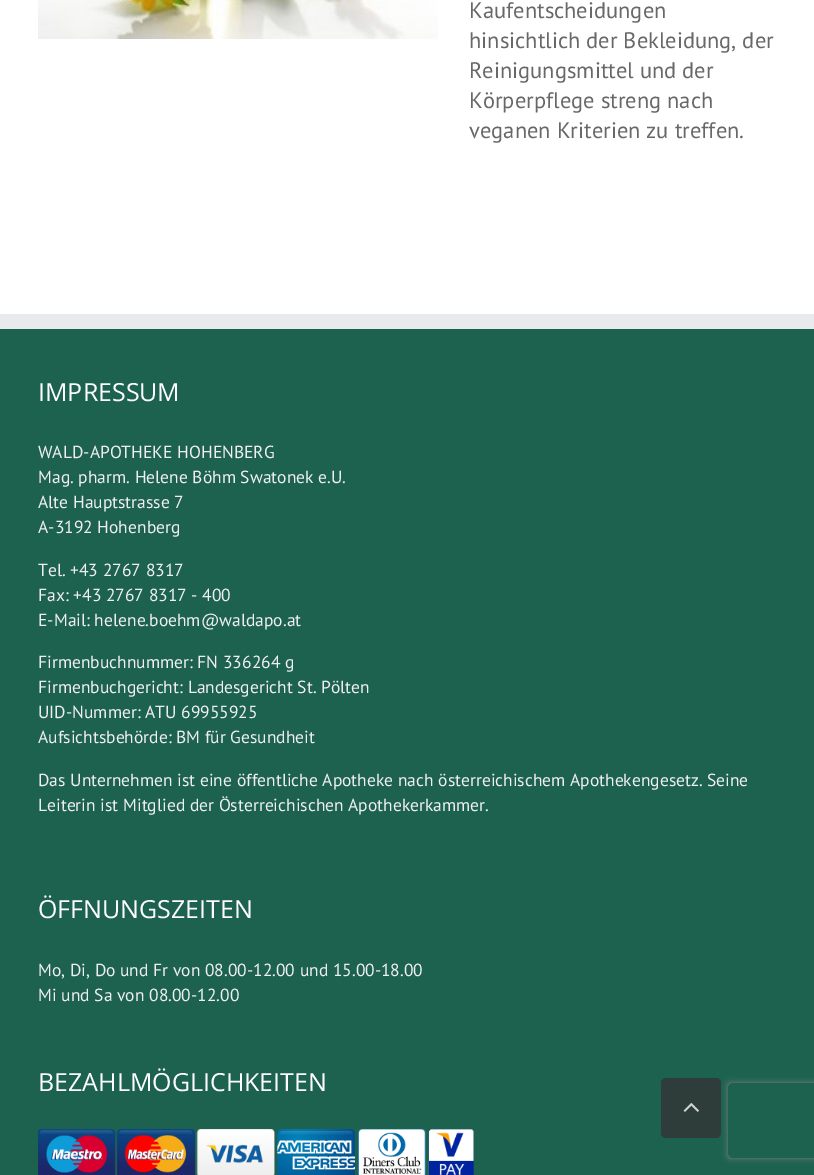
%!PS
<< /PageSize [814 1175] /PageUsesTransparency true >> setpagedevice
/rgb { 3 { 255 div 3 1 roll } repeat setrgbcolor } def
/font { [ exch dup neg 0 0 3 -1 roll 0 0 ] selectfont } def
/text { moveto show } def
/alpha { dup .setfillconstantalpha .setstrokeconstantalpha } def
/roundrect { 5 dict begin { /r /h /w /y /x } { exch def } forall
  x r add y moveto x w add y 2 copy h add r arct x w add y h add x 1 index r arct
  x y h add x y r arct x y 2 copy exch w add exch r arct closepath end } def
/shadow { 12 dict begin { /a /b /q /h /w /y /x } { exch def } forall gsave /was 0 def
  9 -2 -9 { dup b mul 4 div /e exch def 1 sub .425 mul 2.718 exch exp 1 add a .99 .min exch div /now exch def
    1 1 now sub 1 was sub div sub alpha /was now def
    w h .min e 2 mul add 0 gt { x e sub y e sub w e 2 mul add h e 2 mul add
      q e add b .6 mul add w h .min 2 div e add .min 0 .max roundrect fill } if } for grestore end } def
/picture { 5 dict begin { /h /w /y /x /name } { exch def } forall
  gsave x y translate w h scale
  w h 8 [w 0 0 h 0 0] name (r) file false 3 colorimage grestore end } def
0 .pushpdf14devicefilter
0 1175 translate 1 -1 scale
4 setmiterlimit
255 255 255 rgb
0 0 814 1175 rectfill
(img_01.rgb) 38 0 400 39 picture
29 98 79 rgb
0 329 814 846 rectfill
233 234 238 rgb
0 314 814 15 rectfill
(img_02.rgb) 38 1129 436 46 picture
gsave
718 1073 moveto 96 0 rlineto 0 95 rlineto -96 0 rlineto closepath 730.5 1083 moveto 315 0 rlineto 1.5 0 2.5 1 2.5 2.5 rcurveto 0 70 rlineto 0 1.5 -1 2.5 -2.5 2.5 rcurveto -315 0 rlineto -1.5 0 -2.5 -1 -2.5 -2.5 rcurveto 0 -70 rlineto 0 -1.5 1 -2.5 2.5 -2.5 rcurveto closepath eoclip newpath
128 128 128 rgb
728 1083 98 75 2.5 3 1 shadow
grestore
46 61 57 rgb
661 1078 60 60 5 roundrect fill
(img_03.rgb) 683 1103 16 9 picture
/PTSans-Regular 22.5 font
104 104 104 rgb
(Kaufentscheidungen) 469 18 text
(hinsichtlich der Bekleidung, der) 469 48 text
(Reinigungsmittel und der) 469 78 text
(Körperpflege streng nach) 469 108 text
(veganen Kriterien zu treffen.) 469 138 text
/OpenSans-Regular 25 font
255 255 255 rgb
(IMPRESSUM) 38 401 text
/PTSans-Regular 17.5 font
239 239 239 rgb
(WALD-APOTHEKE HOHENBERG) 38 458 text
(Mag. pharm. Helene Böhm Swatonek e.U.) 38 483 text
(Alte Hauptstrasse 7) 38 508 text
(A-3192 Hohenberg) 38 533 text
(Tel. +43 2767 8317) 38 576 text
(Fax: +43 2767 8317 - 400) 38 601 text
(E-Mail: helene.boehm@waldapo.at) 38 626 text
(Firmenbuchnummer: FN 336264 g) 38 668 text
(Firmenbuchgericht: Landesgericht St. Pölten) 38 693 text
(UID-Nummer: ATU 69955925) 38 718 text
(Aufsichtsbehörde: BM für Gesundheit) 38 743 text
(Das Unternehmen ist eine öffentliche Apotheke nach österreichischem Apothekengesetz. Seine) 38 786 text
(Leiterin ist Mitglied der Österreichischen Apothekerkammer.) 38 811 text
/OpenSans-Regular 25 font
255 255 255 rgb
(ÖFFNUNGSZEITEN) 38 918 text
/PTSans-Regular 17.5 font
239 239 239 rgb
(Mo, Di, Do und Fr von 08.00-12.00 und 15.00-18.00) 38 976 text
(Mi und Sa von 08.00-12.00) 38 1001 text
/OpenSans-Regular 25 font
255 255 255 rgb
(BEZAHLMÖGLICHKEITEN) 38 1091 text
.poppdf14devicefilter showpage
